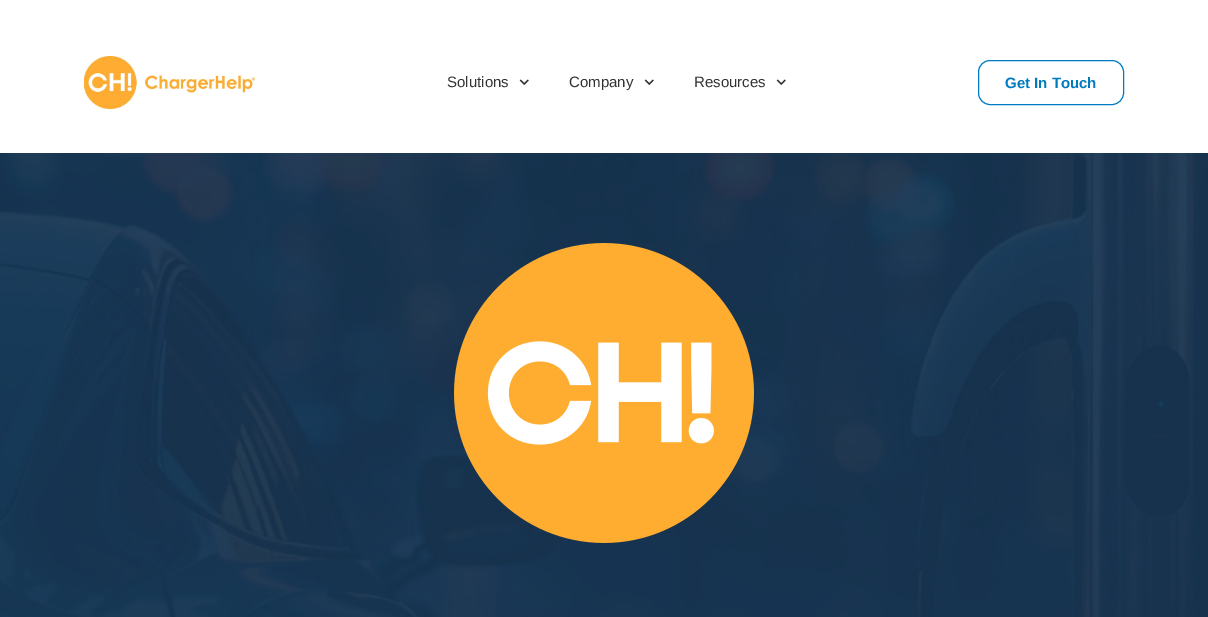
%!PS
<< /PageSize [1208 617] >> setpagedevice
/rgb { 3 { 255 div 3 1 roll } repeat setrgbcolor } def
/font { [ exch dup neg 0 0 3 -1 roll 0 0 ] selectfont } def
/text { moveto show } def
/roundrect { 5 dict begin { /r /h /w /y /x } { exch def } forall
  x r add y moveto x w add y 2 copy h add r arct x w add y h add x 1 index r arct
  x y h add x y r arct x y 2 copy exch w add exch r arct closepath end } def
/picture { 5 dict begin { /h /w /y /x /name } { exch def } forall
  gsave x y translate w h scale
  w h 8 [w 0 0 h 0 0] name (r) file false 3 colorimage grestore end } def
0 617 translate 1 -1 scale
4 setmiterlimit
255 255 255 rgb
0 0 1208 617 rectfill
(img_01.rgb) 84 56 171 53 picture
(img_02.rgb) 519 79 10 6 picture
(img_02.rgb) 644 79 10 6 picture
(img_02.rgb) 776 79 10 6 picture
0 123 194 rgb
978.5 60.5 145 44 11.5 roundrect stroke
(img_03.rgb) 0 153 1208 464 picture
(img_04.rgb) 454 243 300 300 picture
/LiberationSans-Regular 15 font
51 51 51 rgb
(Solutions) 447 87 text
(Company) 569 87 text
(Resources) 694 87 text
/LiberationSans-Bold 15 font
0 123 194 rgb
(Get In Touch) 1005 88 text
showpage
